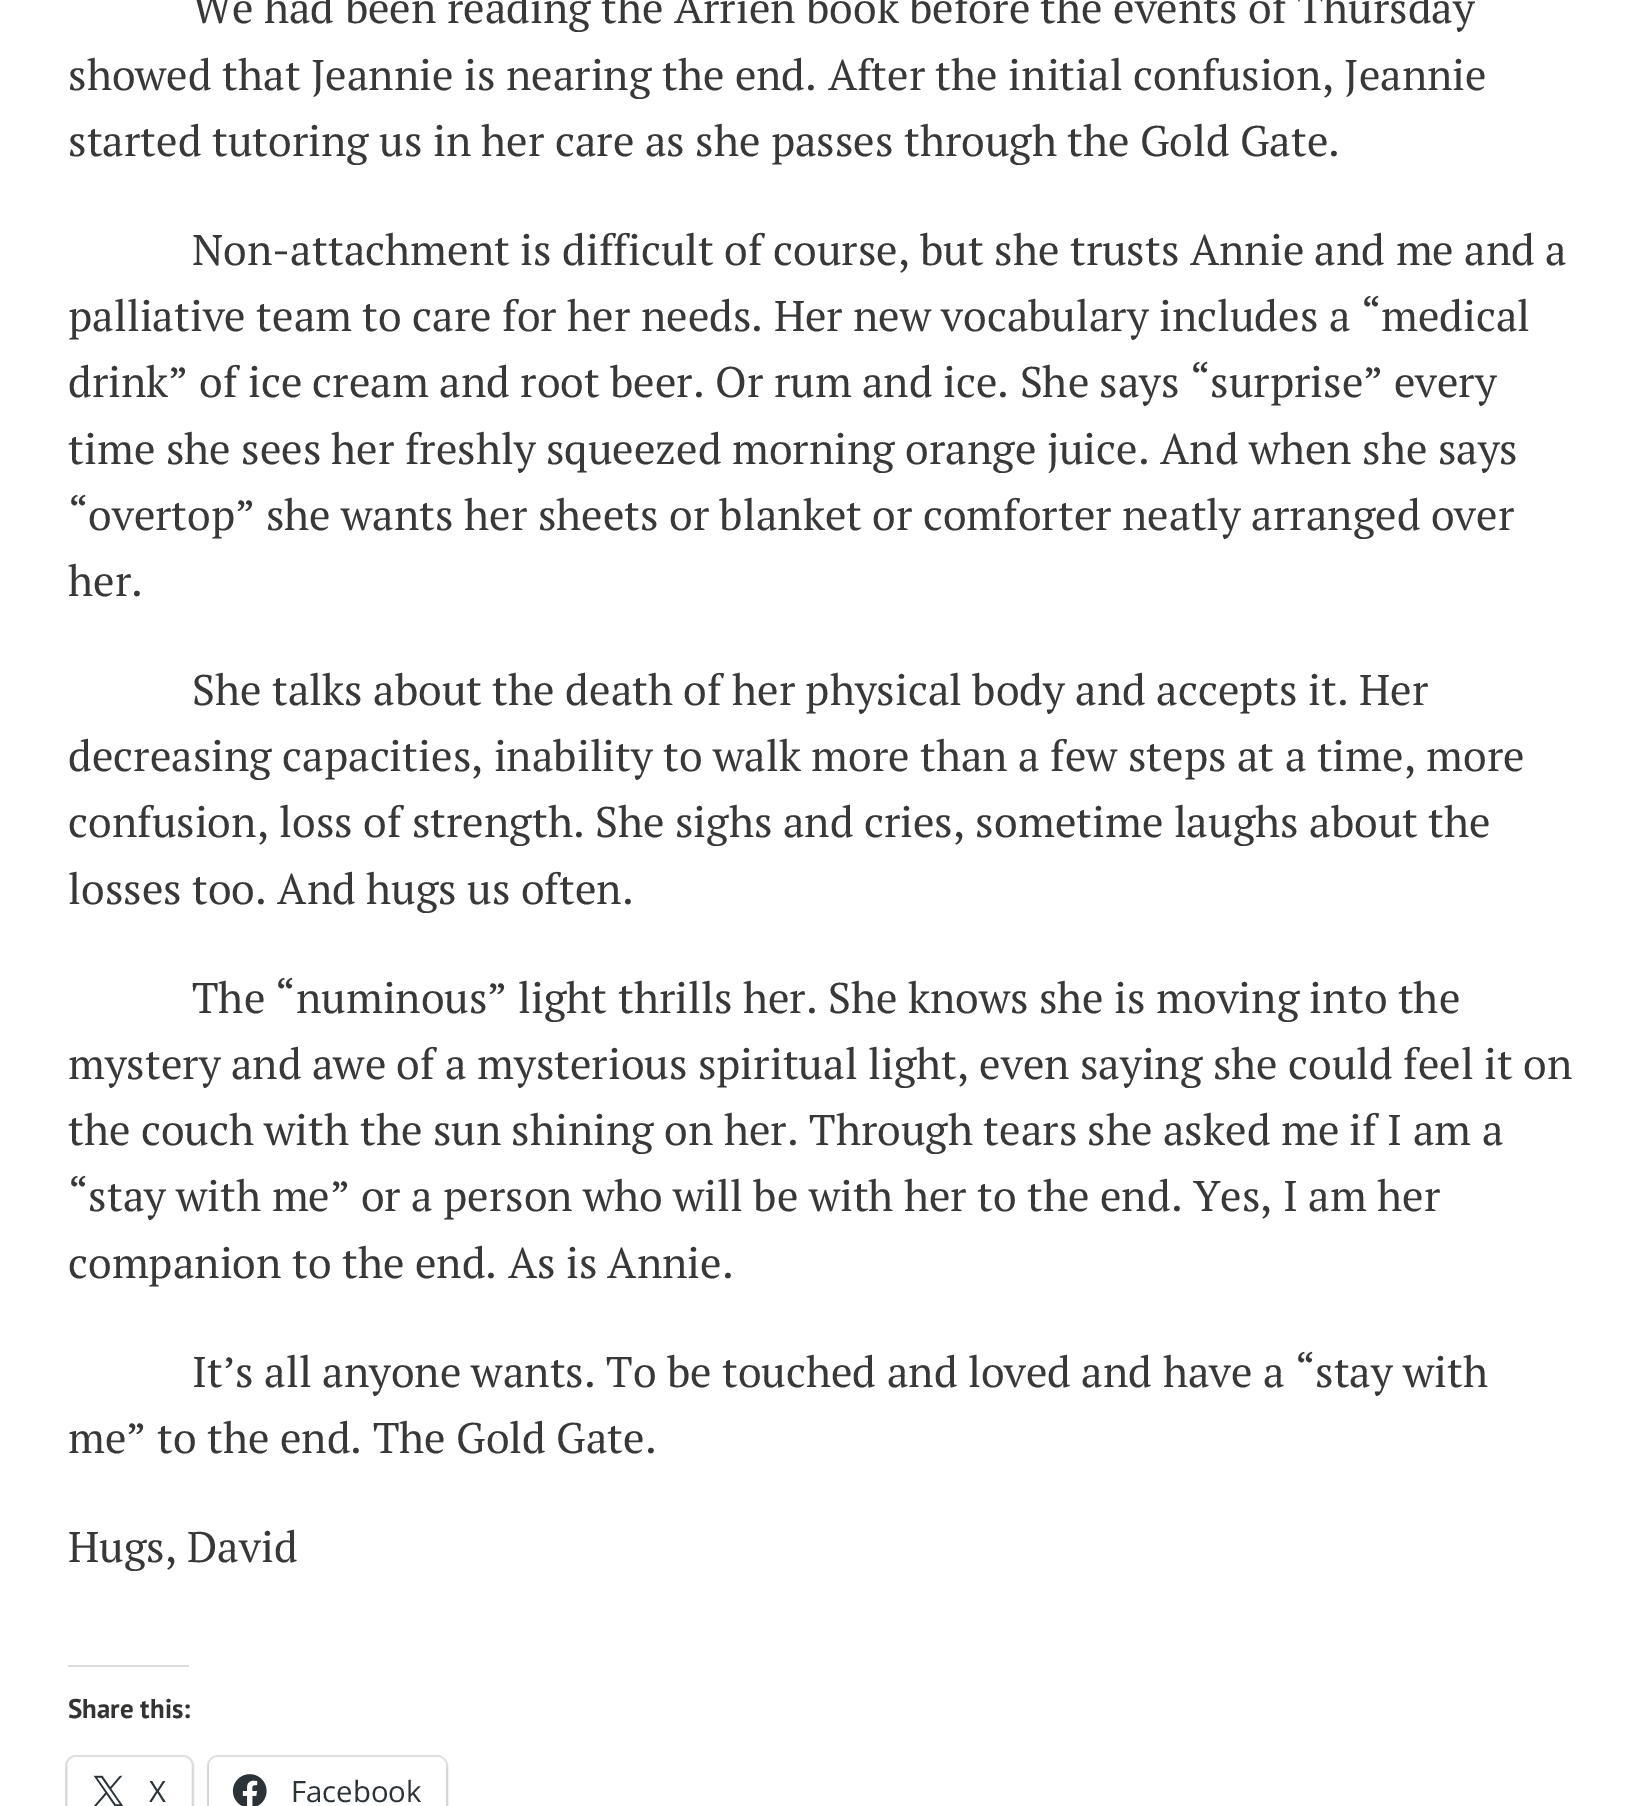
%!PS
<< /PageSize [1641 1806] /PageUsesTransparency true >> setpagedevice
/rgb { 3 { 255 div 3 1 roll } repeat setrgbcolor } def
/font { [ exch dup neg 0 0 3 -1 roll 0 0 ] selectfont } def
/text { moveto show } def
/alpha { dup .setfillconstantalpha .setstrokeconstantalpha } def
/roundrect { 5 dict begin { /r /h /w /y /x } { exch def } forall
  x r add y moveto x w add y 2 copy h add r arct x w add y h add x 1 index r arct
  x y h add x y r arct x y 2 copy exch w add exch r arct closepath end } def
/shadow { 12 dict begin { /a /b /q /h /w /y /x } { exch def } forall gsave /was 0 def
  9 -2 -9 { dup b mul 4 div /e exch def 1 sub .425 mul 2.718 exch exp 1 add a .99 .min exch div /now exch def
    1 1 now sub 1 was sub div sub alpha /was now def
    w h .min e 2 mul add 0 gt { x e sub y e sub w e 2 mul add h e 2 mul add
      q e add b .6 mul add w h .min 2 div e add .min 0 .max roundrect fill } if } for grestore end } def
/picture { 5 dict begin { /h /w /y /x /name } { exch def } forall
  gsave x y translate w h scale
  w h 8 [w 0 0 h 0 0] name (r) file false 3 colorimage grestore end } def
0 .pushpdf14devicefilter
0 1806 translate 1 -1 scale
4 setmiterlimit
255 255 255 rgb
0 0 1641 1806 rectfill
220 220 222 rgb
68 1665 121 2 rectfill
224 224 224 rgb
2 setlinewidth
66 1756 127 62 10 roundrect stroke
0 0 0 rgb
68 1760 123 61 9 2 0.12 shadow
255 255 255 rgb
68 1757 123 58 9 roundrect fill
(img_01.rgb) 93 1775 31 31 picture
224 224 224 rgb
208 1756 239 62 10 roundrect stroke
0 0 0 rgb
209 1760 237 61 9 2 0.12 shadow
255 255 255 rgb
209 1757 237 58 9 roundrect fill
(img_02.rgb) 232 1774 35 32 picture
/PTSerif-Regular 42.75 font
56 56 56 rgb
(We had been reading the Arrien book before the events of Thursday) 192 23 text
(showed that Jeannie is nearing the end. After the initial confusion, Jeannie) 68 90 text
(started tutoring us in her care as she passes through the Gold Gate.) 68 156 text
(Non-attachment is difficult of course, but she trusts Annie and me and a) 192 265 text
(palliative team to care for her needs. Her new vocabulary includes a “medical) 68 331 text
(drink” of ice cream and root beer. Or rum and ice. She says “surprise” every) 68 397 text
(time she sees her freshly squeezed morning orange juice. And when she says) 68 464 text
(“overtop” she wants her sheets or blanket or comforter neatly arranged over) 68 530 text
(her.) 68 596 text
(She talks about the death of her physical body and accepts it. Her) 192 705 text
(decreasing capacities, inability to walk more than a few steps at a time, more) 68 771 text
(confusion, loss of strength. She sighs and cries, sometime laughs about the) 68 837 text
(losses too. And hugs us often.) 68 904 text
(The “numinous” light thrills her. She knows she is moving into the) 192 1013 text
(mystery and awe of a mysterious spiritual light, even saying she could feel it on) 68 1079 text
(the couch with the sun shining on her. Through tears she asked me if I am a) 68 1145 text
(“stay with me” or a person who will be with her to the end. Yes, I am her) 68 1211 text
(companion to the end. As is Annie.) 68 1278 text
(It’s all anyone wants. To be touched and loved and have a “stay with) 192 1387 text
(me” to the end. The Gold Gate.) 68 1453 text
(Hugs, David) 68 1562 text
/PTSans-Bold 27 font
51 51 50 rgb
(Share this:) 68 1718 text
/OpenSans-Regular 29.25 font
44 51 56 rgb
(X) 149 1802 text
(Facebook) 291 1802 text
.poppdf14devicefilter showpage
